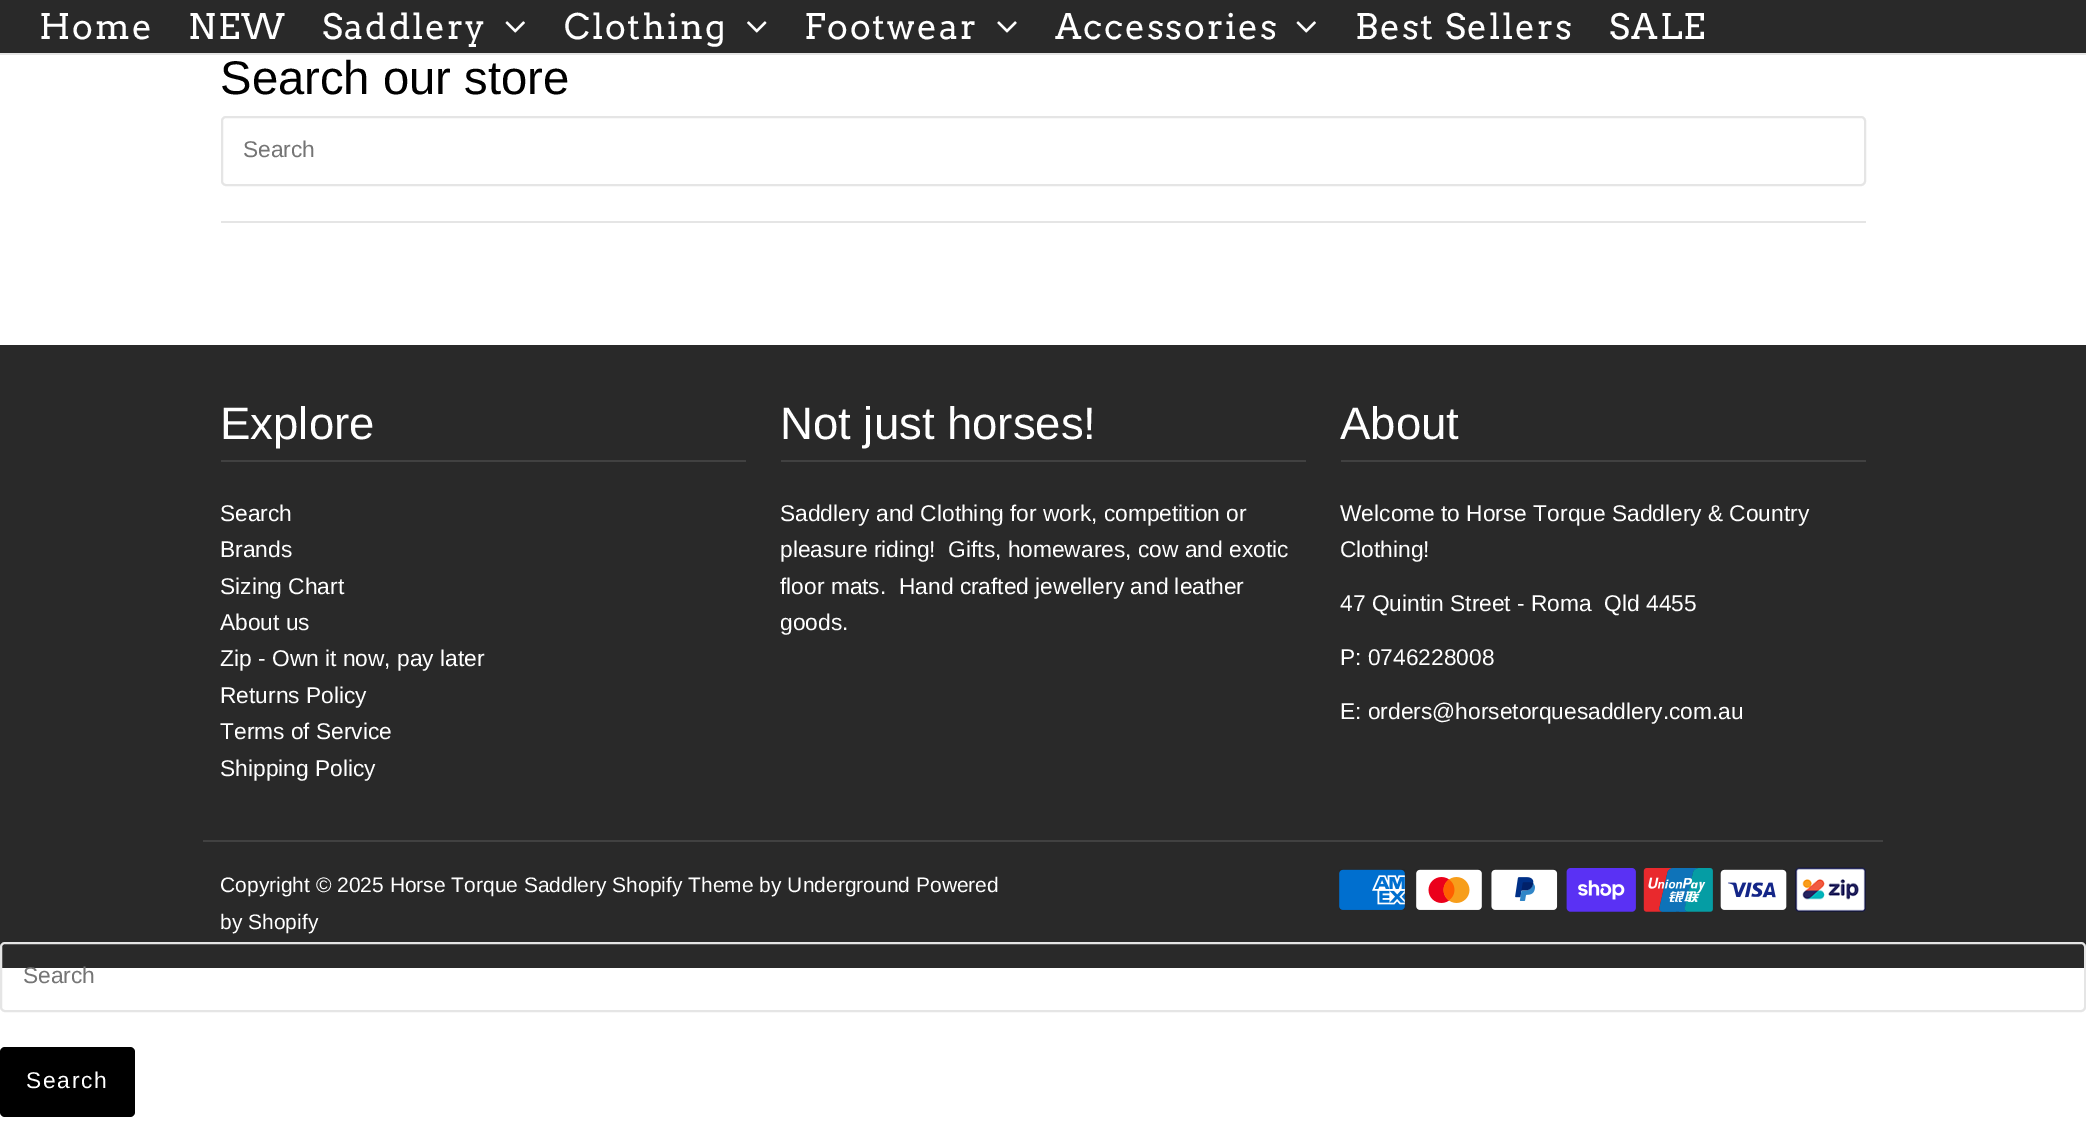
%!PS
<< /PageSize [2086 1134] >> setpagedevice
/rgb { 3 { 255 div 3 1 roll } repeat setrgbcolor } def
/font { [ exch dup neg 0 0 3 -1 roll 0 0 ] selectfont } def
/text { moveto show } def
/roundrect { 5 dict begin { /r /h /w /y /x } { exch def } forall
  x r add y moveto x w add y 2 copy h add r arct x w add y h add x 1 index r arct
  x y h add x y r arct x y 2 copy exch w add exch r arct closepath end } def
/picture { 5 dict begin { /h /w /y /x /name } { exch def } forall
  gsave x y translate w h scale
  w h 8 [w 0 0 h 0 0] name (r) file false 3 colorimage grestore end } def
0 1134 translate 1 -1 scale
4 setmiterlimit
255 255 255 rgb
0 0 2086 1134 rectfill
41 41 41 rgb
0 0 2086 53 rectfill
229 229 229 rgb
0 53 2086 2 rectfill
(img_01.rgb) 505 21 20 12 picture
(img_02.rgb) 747 21 20 12 picture
(img_03.rgb) 997 21 20 12 picture
(img_01.rgb) 1296 21 20 12 picture
221 221 1645 2 rectfill
2 setlinewidth
222 117 1643 68 4 roundrect stroke
41 41 41 rgb
0 345 2086 623 rectfill
65 65 65 rgb
221 460 525 2 rectfill
781 460 525 2 rectfill
1341 460 525 2 rectfill
203 840 1680 2 rectfill
(img_04.rgb) 1339 869 66 41 picture
(img_05.rgb) 1416 869 66 41 picture
(img_06.rgb) 1491 869 67 41 picture
(img_07.rgb) 1566 868 70 44 picture
(img_08.rgb) 1643 868 70 44 picture
(img_09.rgb) 1720 869 67 41 picture
(img_10.rgb) 1795 867 71 45 picture
229 229 229 rgb
1 943 2084 68 4 roundrect stroke
0 0 0 rgb
0 1047 135 70 5 roundrect fill
/Arvo-Regular 35 font
255 255 255 rgb
39 39 moveto 1.75 0 (Home) ashow
188 39 moveto 1.75 0 (NEW) ashow
322 39 moveto 1.75 0 (Saddlery) ashow
564 39 moveto 1.75 0 (Clothing) ashow
804 39 moveto 1.75 0 (Footwear) ashow
1055 39 moveto 1.75 0 (Accessories) ashow
1355 39 moveto 1.75 0 (Best Sellers) ashow
1609 39 moveto 1.75 0 (SALE) ashow
/LiberationSans-Regular 47.25 font
0 0 0 rgb
(Search our store) 220 94 text
/LiberationSans-Regular 22.75 font
117 117 117 rgb
(Search) 243 157 text
/LiberationSans-Regular 45.5 font
255 255 255 rgb
(Explore) 220 439 text
/LiberationSans-Regular 22.75 font
(Search) 220 521 text
(Brands) 220 557 text
(Sizing Chart) 220 594 text
(About us) 220 630 text
(Zip - Own it now, pay later) 220 666 text
(Returns Policy) 220 703 text
(Terms of Service) 220 739 text
(Shipping Policy) 220 776 text
/LiberationSans-Regular 45.5 font
(Not just horses!) 780 439 text
/LiberationSans-Regular 22.75 font
(Saddlery and Clothing for work, competition or) 780 521 text
(pleasure riding!  Gifts, homewares, cow and exotic) 780 557 text
(floor mats.  Hand crafted jewellery and leather) 780 594 text
(goods.) 780 630 text
/LiberationSans-Regular 45.5 font
(About) 1340 439 text
/LiberationSans-Regular 22.75 font
(Welcome to Horse Torque Saddlery & Country) 1340 521 text
(Clothing!) 1340 557 text
(47 Quintin Street - Roma  Qld 4455) 1340 611 text
(P: 0746228008) 1340 665 text
(E: orders@horsetorquesaddlery.com.au) 1340 719 text
/LiberationSans-Regular 21 font
(Copyright © 2025 Horse Torque Saddlery Shopify Theme by Underground Powered) 220 892 text
(by Shopify) 220 929 text
/LiberationSans-Regular 22.75 font
117 117 117 rgb
(Search) 23 983 text
255 255 255 rgb
26 1088 moveto 1.75 0 (Search) ashow
showpage
